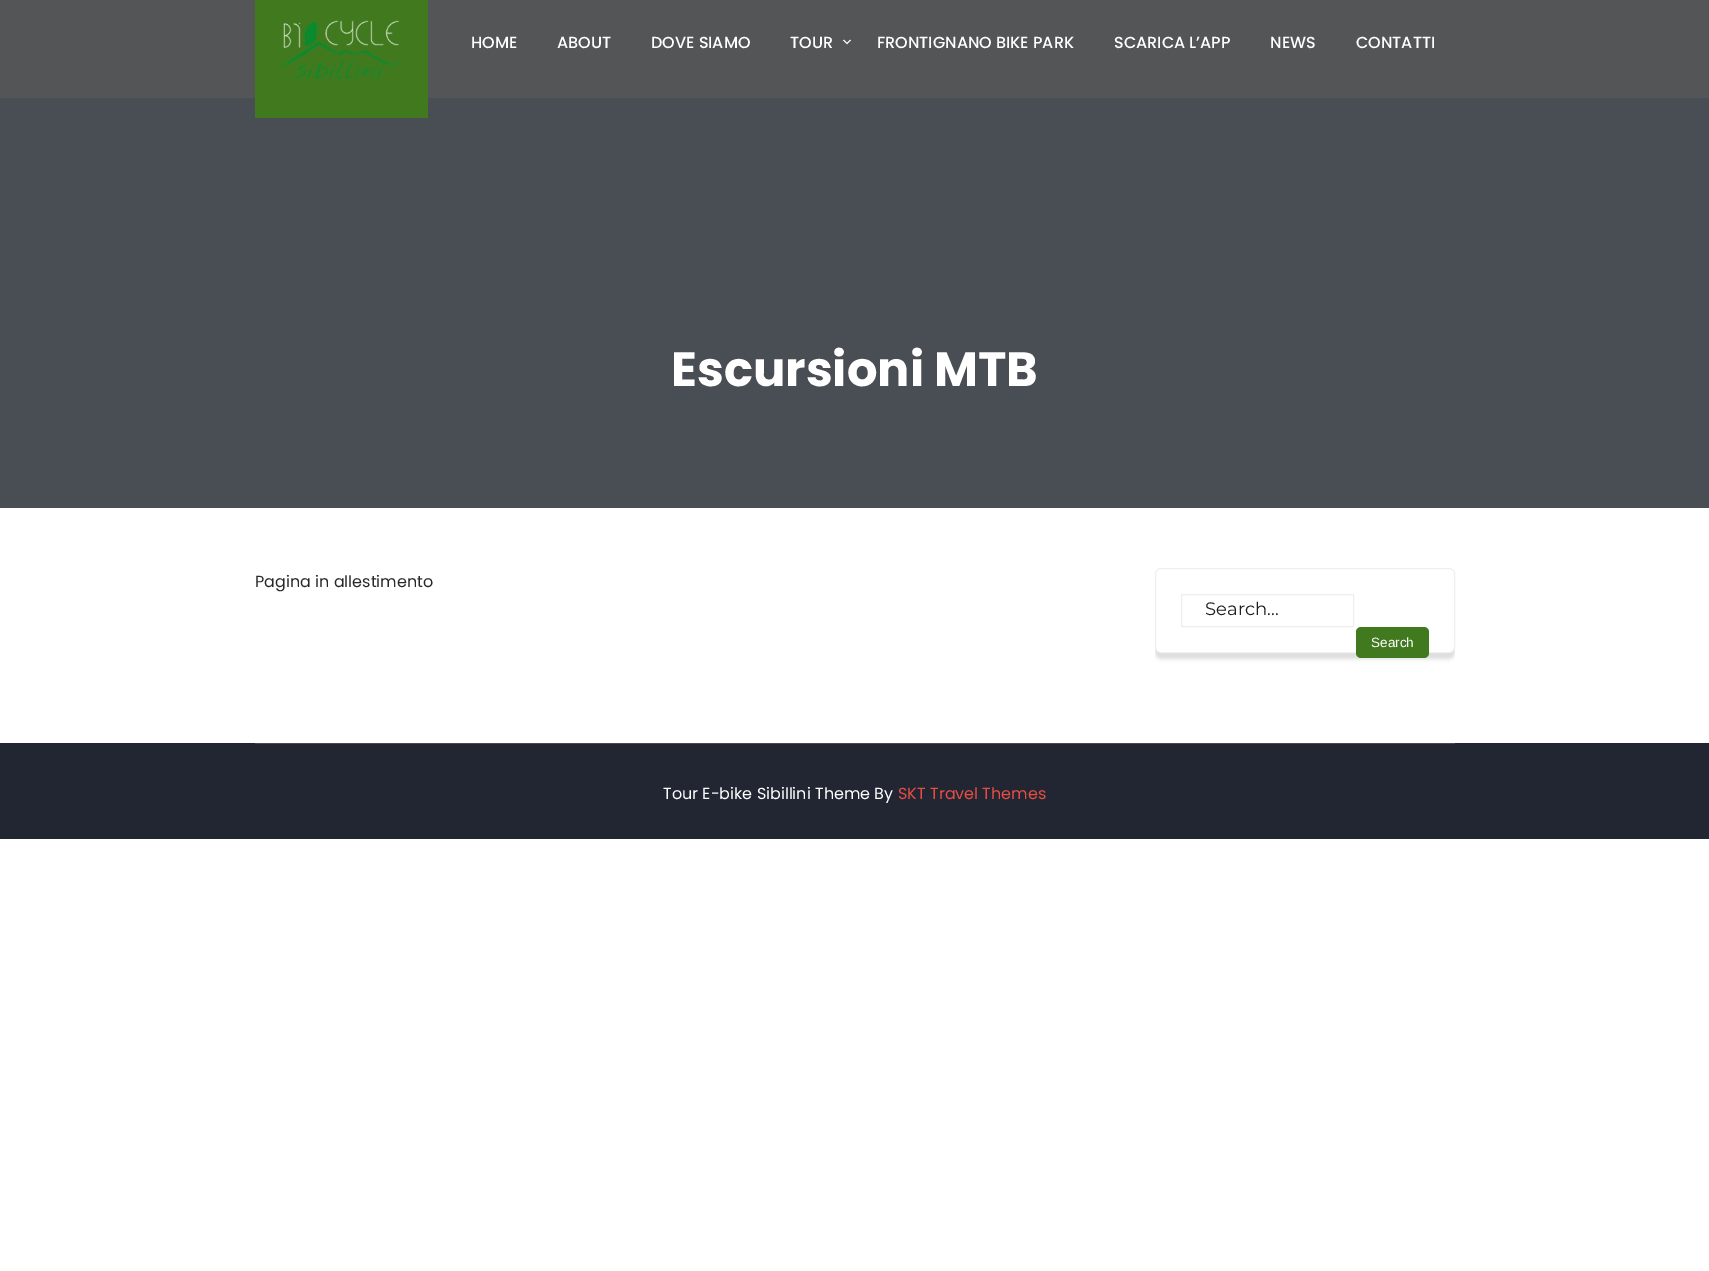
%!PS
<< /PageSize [1709 1271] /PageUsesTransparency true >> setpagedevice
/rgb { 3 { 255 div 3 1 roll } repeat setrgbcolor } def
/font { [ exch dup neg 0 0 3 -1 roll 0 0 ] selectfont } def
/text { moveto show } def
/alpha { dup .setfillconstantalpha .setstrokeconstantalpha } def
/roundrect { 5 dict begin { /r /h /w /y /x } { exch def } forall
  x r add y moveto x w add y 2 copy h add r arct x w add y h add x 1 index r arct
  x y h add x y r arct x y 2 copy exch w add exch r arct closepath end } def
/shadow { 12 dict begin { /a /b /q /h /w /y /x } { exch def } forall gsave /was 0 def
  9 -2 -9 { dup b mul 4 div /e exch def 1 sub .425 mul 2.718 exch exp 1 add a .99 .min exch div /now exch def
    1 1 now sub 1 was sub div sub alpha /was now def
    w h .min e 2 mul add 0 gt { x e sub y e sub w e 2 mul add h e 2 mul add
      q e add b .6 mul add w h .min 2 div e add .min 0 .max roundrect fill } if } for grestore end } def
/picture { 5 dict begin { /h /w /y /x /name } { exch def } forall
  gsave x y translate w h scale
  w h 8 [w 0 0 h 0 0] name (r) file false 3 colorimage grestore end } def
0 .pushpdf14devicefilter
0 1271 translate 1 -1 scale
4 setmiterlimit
255 255 255 rgb
0 0 1709 1271 rectfill
84 85 86 rgb
0 0 1709 98 rectfill
73 77 84 rgb
0 98 1709 410 rectfill
65 122 30 rgb
255 0 173 118 rectfill
(img_01.rgb) 282 20 118 59 picture
(img_02.rgb) 842 39 10 6 picture
gsave
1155 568 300 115 rectclip
220 220 220 rgb
1155 574 300 85 6 2 1 shadow
grestore
255 255 255 rgb
1155.5 568.5 299 84 5.5 roundrect gsave fill grestore
238 239 245 rgb
stroke
238 238 238 rgb
1181.5 594.5 172 32 rectstroke
65 122 30 rgb
1356 627 73 31 5 roundrect fill
33 38 50 rgb
0 743 1709 96 rectfill
69 75 86 rgb
255 743 1200 1 rectfill
/Poppins-Medium 16 font
255 255 255 rgb
(HOME) 471 48 text
(ABOUT) 557 48 text
(DOVE SIAMO) 651 48 text
(TOUR) 790 48 text
(FRONTIGNANO BIKE PARK) 877 48 text
(SCARICA L’APP) 1114 48 text
(NEWS) 1270 48 text
(CONTATTI) 1356 48 text
/Poppins-Bold 48 font
(Escursioni MTB) 671 386 text
/Poppins-Regular 16 font
41 41 41 rgb
(Pagina in allestimento) 255 587 text
/Montserrat-Regular 18 font
30 30 30 rgb
(Search...) 1205 615 text
/LiberationSans-Regular 13.5 font
255 255 255 rgb
(Search) 1371 647 text
/Poppins-Regular 16 font
(Tour E-bike Sibillini Theme By) 663 799 text
230 77 67 rgb
(SKT Travel Themes) 898 799 text
.poppdf14devicefilter showpage
